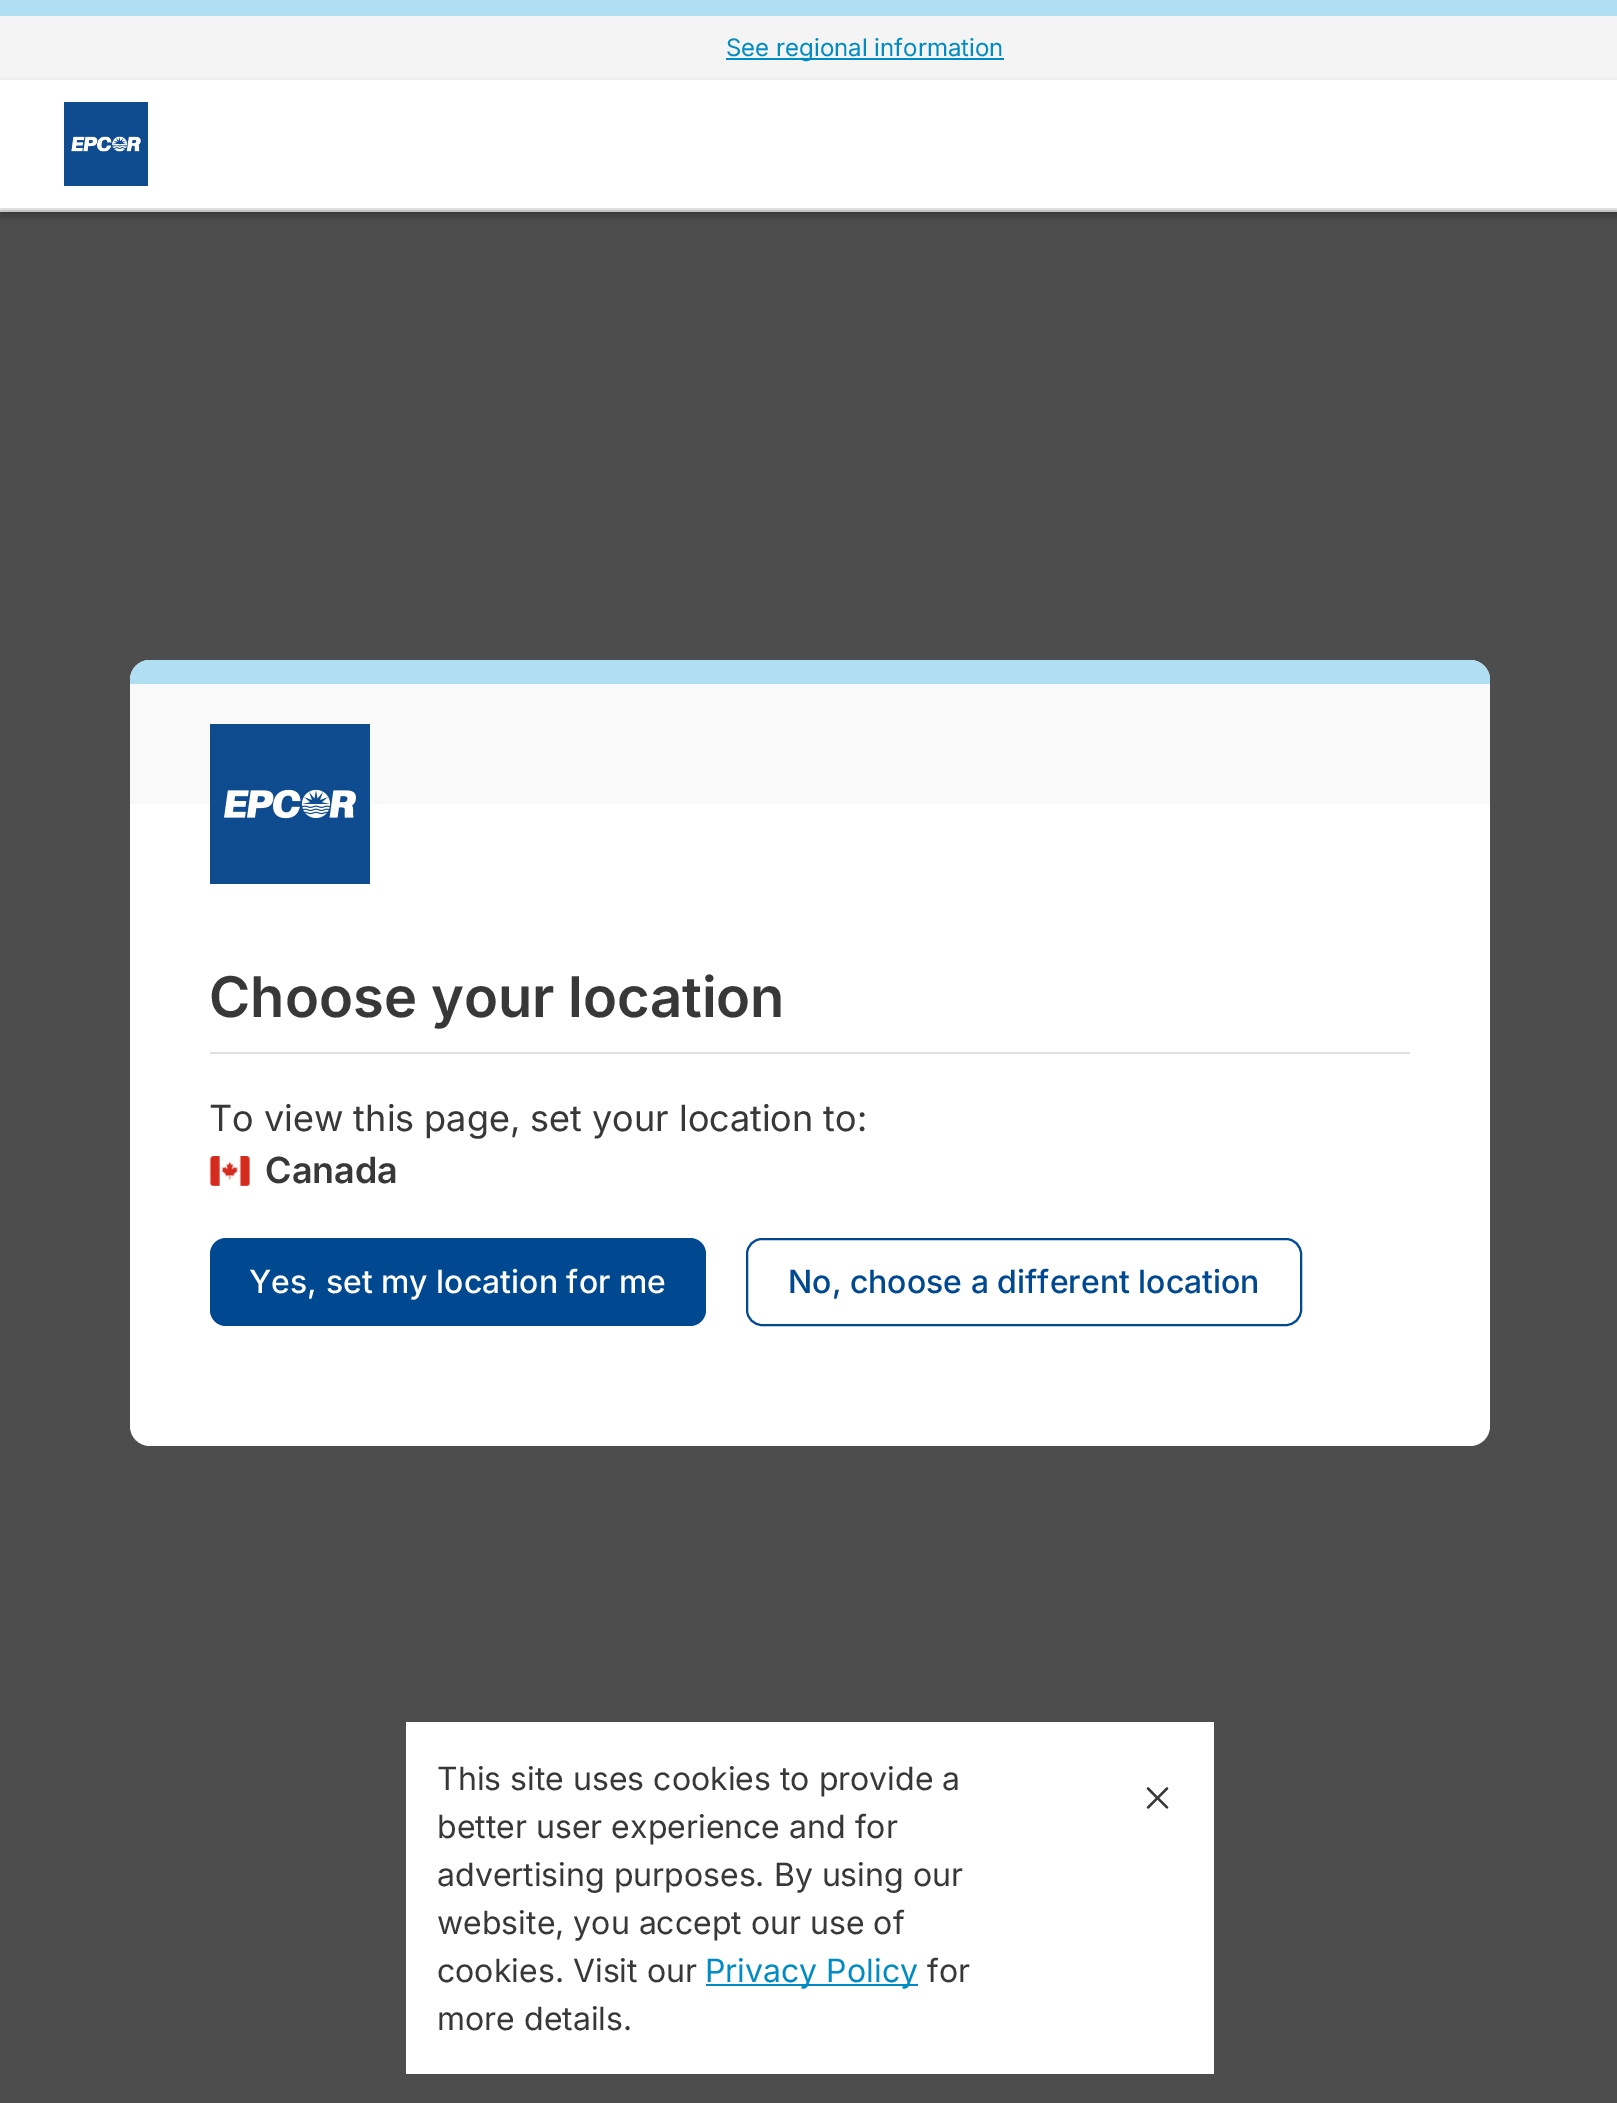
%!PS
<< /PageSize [1617 2103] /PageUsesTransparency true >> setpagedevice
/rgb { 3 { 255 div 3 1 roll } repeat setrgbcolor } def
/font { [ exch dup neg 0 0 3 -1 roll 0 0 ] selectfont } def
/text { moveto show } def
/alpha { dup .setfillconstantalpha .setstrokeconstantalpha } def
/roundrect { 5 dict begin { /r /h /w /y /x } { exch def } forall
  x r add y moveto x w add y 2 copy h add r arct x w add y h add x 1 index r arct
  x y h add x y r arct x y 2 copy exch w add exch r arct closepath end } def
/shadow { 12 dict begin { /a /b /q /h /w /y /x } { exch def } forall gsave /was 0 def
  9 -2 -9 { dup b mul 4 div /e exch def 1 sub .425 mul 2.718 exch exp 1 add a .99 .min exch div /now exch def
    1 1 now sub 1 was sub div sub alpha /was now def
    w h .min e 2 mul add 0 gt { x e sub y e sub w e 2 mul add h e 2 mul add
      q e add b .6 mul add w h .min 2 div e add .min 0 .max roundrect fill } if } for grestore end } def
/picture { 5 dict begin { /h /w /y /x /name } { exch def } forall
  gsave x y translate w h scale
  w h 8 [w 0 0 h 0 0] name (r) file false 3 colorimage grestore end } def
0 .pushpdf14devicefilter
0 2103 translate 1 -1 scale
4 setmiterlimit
77 77 77 rgb
0 0 1617 2103 rectfill
0 0 0 rgb
0 4 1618 212 0 4 0.16 shadow
224 224 224 rgb
0 210 1617 2 rectfill
176 223 243 rgb
0 0 1617 16 rectfill
244 244 244 rgb
0 16 1617 64 rectfill
0 139 196 rgb
726 58 278 2 rectfill
255 255 255 rgb
130 660 1360 786 20 roundrect fill
176 223 243 rgb
150 660 moveto 1320 0 rlineto 11 0 20 9 20 20 rcurveto 0 4 rlineto -1360 0 rlineto 0 -4 rlineto 0 -11 9 -20 20 -20 rcurveto closepath fill
249 249 249 rgb
130 684 1360 120 rectfill
(img_01.rgb) 210 724 160 160 picture
224 224 224 rgb
210 1052 1200 2 rectfill
(img_02.rgb) 209 1156 41 30 picture
0 72 144 rgb
210 1238 496 88 16 roundrect fill
2 setlinewidth
747 1239 554 86 15 roundrect stroke
0 0 0 rgb
0 84 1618 130 0 4 0.16 shadow
255 255 255 rgb
0 80 1617 128 rectfill
224 224 224 rgb
0 208 1617 2 rectfill
(img_03.rgb) 64 102 84 84 picture
255 255 255 rgb
406 1722 808 352 rectfill
0 139 196 rgb
706 1984 212 2 rectfill
(img_04.rgb) 1146 1787 23 22 picture
/Inter-Regular 24 font
(See regional information) 726 56 text
/Inter-SemiBold 56 font
56 56 56 rgb
(Choose your location) 209 1017 text
/Inter-Regular 36 font
(To view this page, set your location to:) 209 1131 text
/Inter-SemiBold 36 font
(Canada) 265 1183 text
/Inter-Medium 32 font
255 255 255 rgb
(Yes, set my location for me) 249 1293 text
0 72 144 rgb
(No, choose a different location) 788 1293 text
/Inter-Regular 32 font
56 56 56 rgb
(This site uses cookies to provide a) 437 1790 text
(better user experience and for) 437 1838 text
(advertising purposes. By using our) 437 1886 text
(website, you accept our use of) 437 1934 text
(cookies. Visit our) 437 1982 text
0 139 196 rgb
(Privacy Policy) 705 1982 text
56 56 56 rgb
(for) 927 1982 text
(more details.) 437 2030 text
.poppdf14devicefilter showpage
